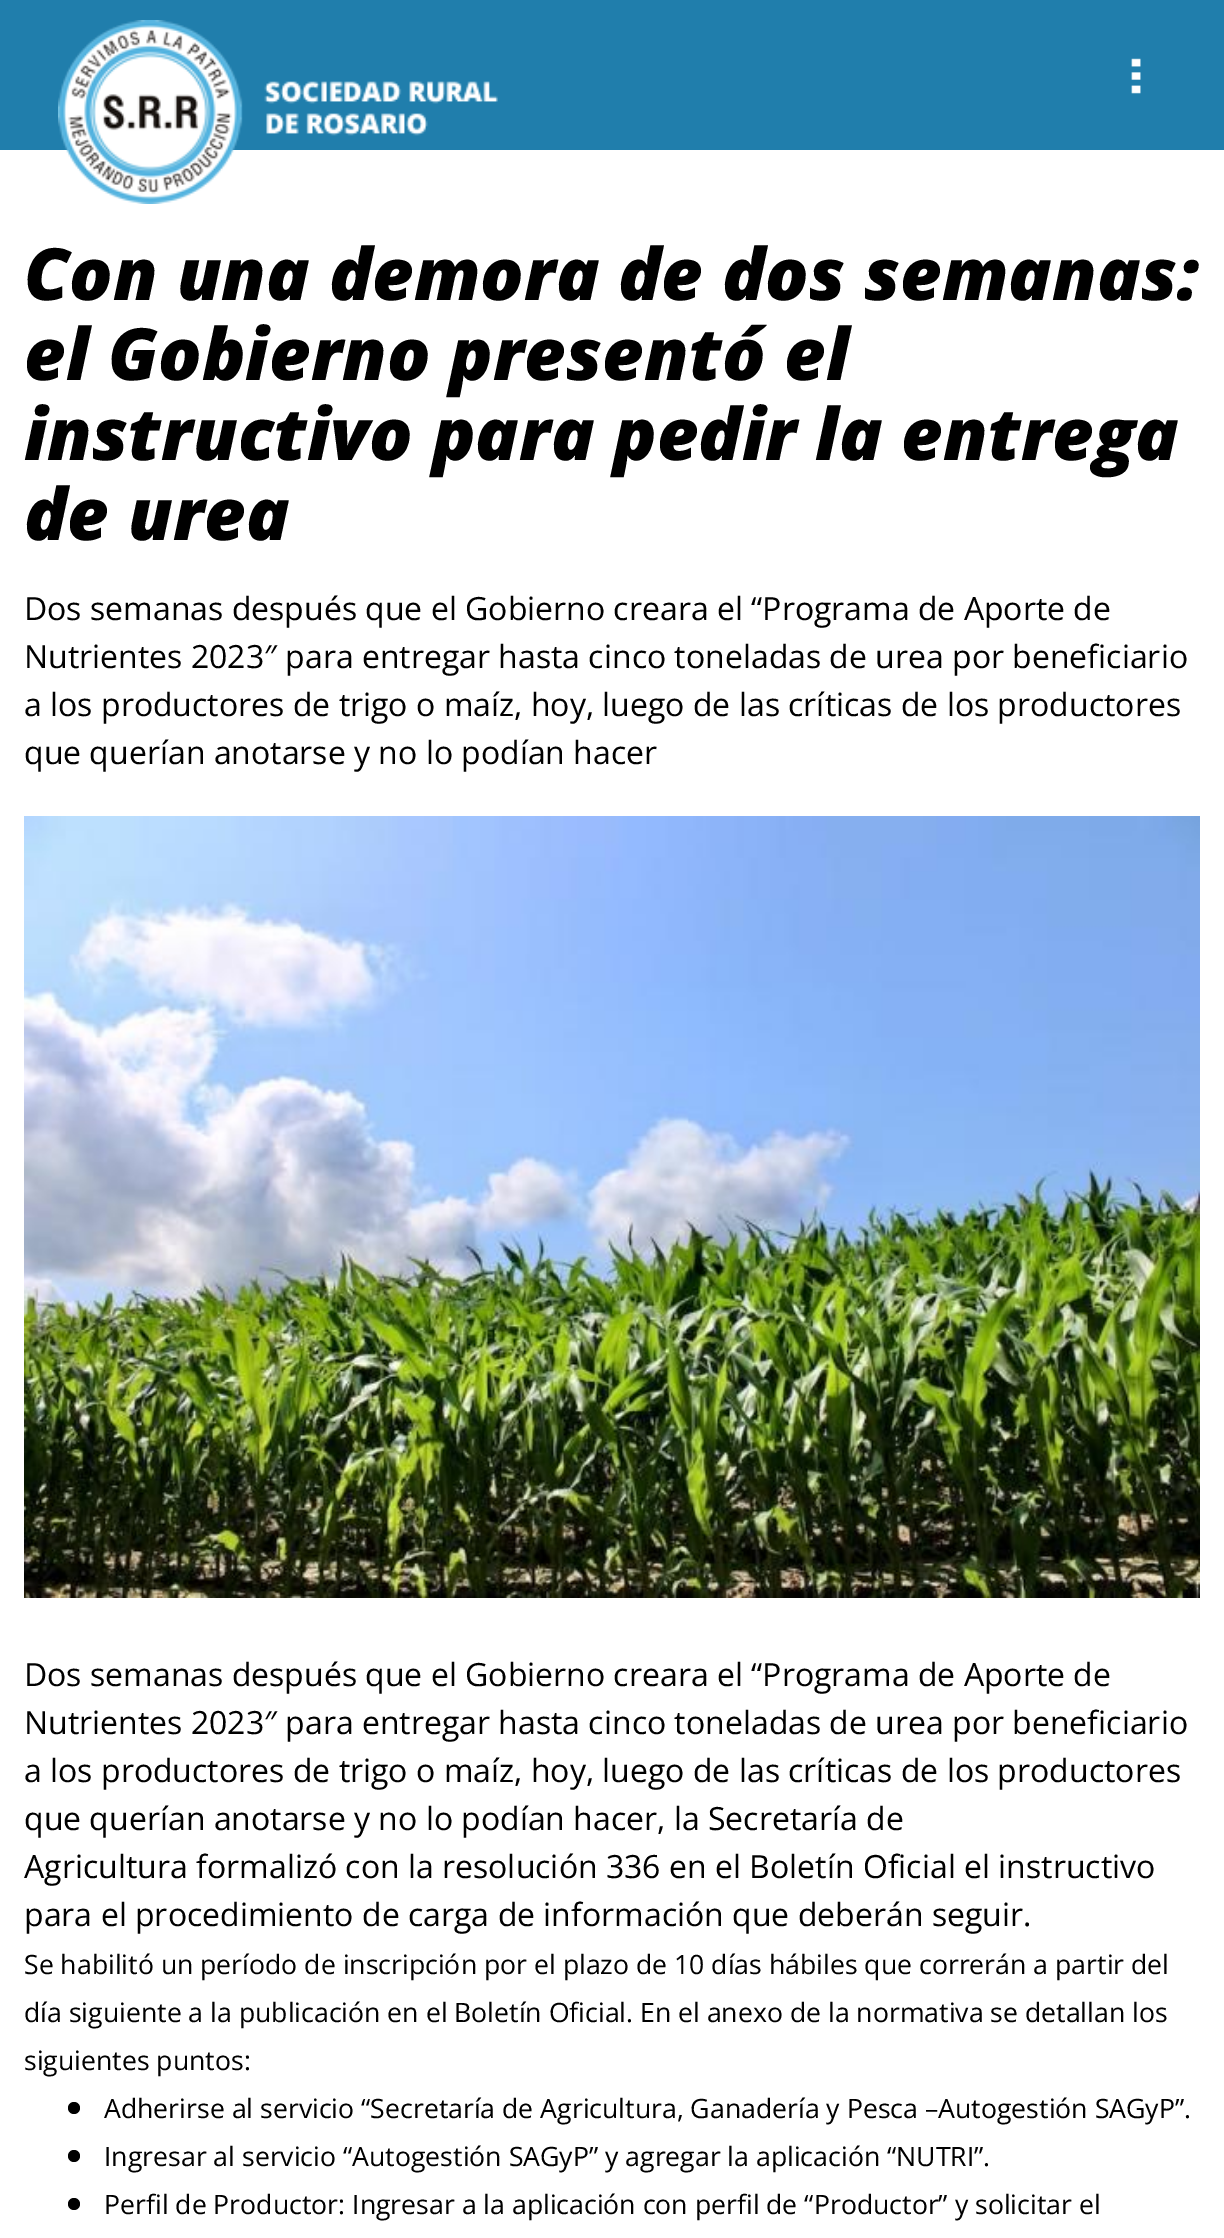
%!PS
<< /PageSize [1224 2238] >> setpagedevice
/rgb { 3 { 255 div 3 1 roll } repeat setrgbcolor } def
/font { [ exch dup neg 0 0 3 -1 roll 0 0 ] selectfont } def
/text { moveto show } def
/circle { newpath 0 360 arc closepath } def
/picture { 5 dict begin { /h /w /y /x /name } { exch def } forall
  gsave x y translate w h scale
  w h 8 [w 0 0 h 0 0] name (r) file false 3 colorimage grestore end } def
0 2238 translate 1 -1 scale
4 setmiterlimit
255 255 255 rgb
0 0 1224 2238 rectfill
32 126 172 rgb
0 0 1224 150 rectfill
(img_01.rgb) 58 20 440 184 picture
(img_02.rgb) 1131 58 10 36 picture
(img_03.rgb) 24 816 1176 782 picture
0 0 0 rgb
74 2108 6 circle fill
74 2156 6 circle fill
74 2204 6 circle fill
/OpenSans-ExtraBoldItalic 72 font
(Con una demora de dos semanas:) 24 300 text
(el Gobierno presentó el) 24 380 text
(instructivo para pedir la entrega) 24 460 text
(de urea) 24 540 text
/OpenSans-Regular 32 font
(Dos semanas después que el Gobierno creara el “Programa de Aporte de) 24 620 text
(Nutrientes 2023″ para entregar hasta cinco toneladas de urea por beneficiario) 24 668 text
(a los productores de trigo o maíz, hoy, luego de las críticas de los productores) 24 716 text
(que querían anotarse y no lo podían hacer) 24 764 text
(Dos semanas después que el Gobierno creara el “Programa de Aporte de) 24 1686 text
(Nutrientes 2023″ para entregar hasta cinco toneladas de urea por beneficiario) 24 1734 text
(a los productores de trigo o maíz, hoy, luego de las críticas de los productores) 24 1782 text
(que querían anotarse y no lo podían hacer, la Secretaría de) 24 1830 text
(Agricultura formalizó con la resolución 336 en el Boletín Oficial el instructivo) 24 1878 text
(para el procedimiento de carga de información que deberán seguir.) 24 1926 text
/OpenSans-Regular 26.65 font
(Se habilitó un período de inscripción por el plazo de 10 días hábiles que correrán a partir del) 24 1974 text
(día siguiente a la publicación en el Boletín Oficial. En el anexo de la normativa se detallan los) 24 2022 text
(siguientes puntos:) 24 2070 text
(Adherirse al servicio “Secretaría de Agricultura, Ganadería y Pesca –Autogestión SAGyP”.) 104 2118 text
(Ingresar al servicio “Autogestión SAGyP” y agregar la aplicación “NUTRI”.) 104 2166 text
(Perfil de Productor: Ingresar a la aplicación con perfil de “Productor” y solicitar el) 104 2214 text
showpage
